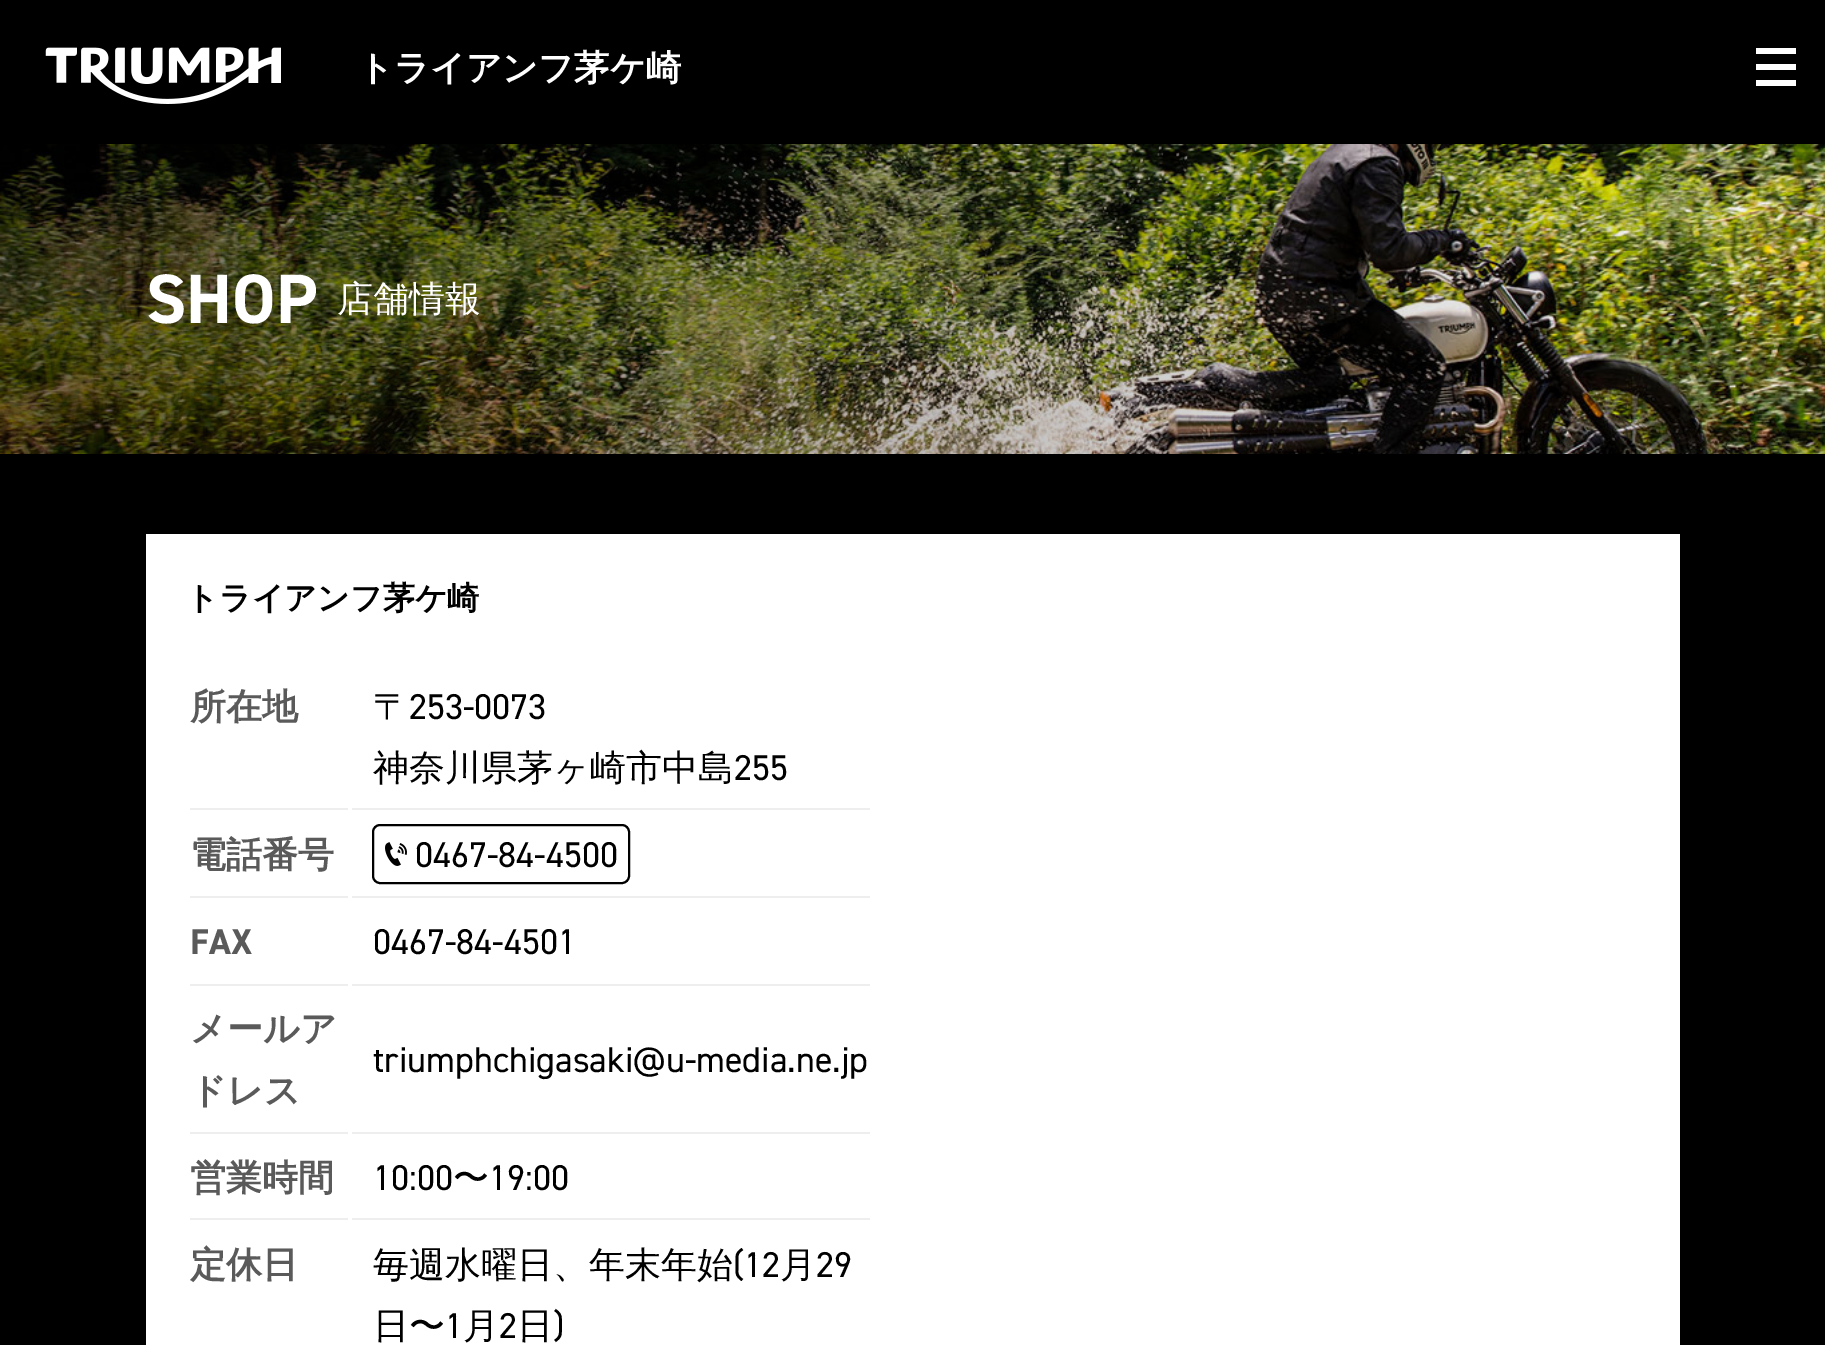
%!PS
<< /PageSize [1825 1345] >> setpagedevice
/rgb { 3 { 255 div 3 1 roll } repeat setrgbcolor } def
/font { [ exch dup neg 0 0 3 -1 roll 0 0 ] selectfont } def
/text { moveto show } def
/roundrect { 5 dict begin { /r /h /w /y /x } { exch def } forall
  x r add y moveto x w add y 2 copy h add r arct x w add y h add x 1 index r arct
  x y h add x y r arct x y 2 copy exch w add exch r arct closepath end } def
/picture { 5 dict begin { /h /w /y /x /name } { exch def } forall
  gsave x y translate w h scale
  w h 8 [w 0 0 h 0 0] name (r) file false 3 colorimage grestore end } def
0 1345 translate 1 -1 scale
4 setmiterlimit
0 0 0 rgb
0 0 1825 1345 rectfill
(img_01.rgb) 45 47 236 57 picture
255 255 255 rgb
1756 48 40 6 rectfill
1756 64 40 6 rectfill
1756 80 40 6 rectfill
(img_02.rgb) 0 144 1825 310 picture
146 534 1534 811 rectfill
238 238 238 rgb
190 808 158 2 rectfill
352 808 518 2 rectfill
190 896 158 2 rectfill
352 896 518 2 rectfill
(img_03.rgb) 385 842 22 24 picture
0 0 0 rgb
2 setlinewidth
373 825 256 58 7 roundrect stroke
238 238 238 rgb
190 984 158 2 rectfill
352 984 518 2 rectfill
190 1132 158 2 rectfill
352 1132 518 2 rectfill
190 1218 158 2 rectfill
352 1218 518 2 rectfill
/WenQuanYiZenHei-Bold 35.25 font
255 255 255 rgb
(トライアンフ茅ケ崎) 358 80 text
/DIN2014-Bold 70 font
(SHOP) 146 323 text
/WenQuanYiZenHei-Medium 36 font
(店舗情報) 337 311 text
/WenQuanYiZenHei-Bold 32 font
0 0 0 rgb
(トライアンフ茅ケ崎) 186 609 text
/WenQuanYiZenHei-Bold 36 font
90 90 90 rgb
(所在地) 190 719 text
/WenQuanYiZenHei-Medium 36 font
0 0 0 rgb
(〒) 373 719 text
/DIN2014-Regular 36 font
(253-0073) 409 719 text
/WenQuanYiZenHei-Medium 36 font
(神奈川県茅ヶ崎市中島) 373 780 text
/DIN2014-Regular 36 font
(255) 734 780 text
/WenQuanYiZenHei-Bold 36 font
90 90 90 rgb
(電話番号) 190 867 text
/DIN2014-Regular 36 font
0 0 0 rgb
(0467-84-4500) 415 867 text
/DIN2014-Bold 36 font
90 90 90 rgb
(FAX) 190 954 text
/DIN2014-Regular 36 font
0 0 0 rgb
(0467-84-4501) 373 954 text
/WenQuanYiZenHei-Bold 36 font
90 90 90 rgb
(メールア) 190 1041 text
(ドレス) 190 1103 text
/DIN2014-Regular 36 font
0 0 0 rgb
(triumphchigasaki@u-media.ne.jp) 373 1072 text
/WenQuanYiZenHei-Bold 36 font
90 90 90 rgb
(営業時間) 190 1190 text
/DIN2014-Regular 36 font
0 0 0 rgb
(10:00) 373 1190 text
/WenQuanYiZenHei-Medium 36 font
(〜) 453 1190 text
/DIN2014-Regular 36 font
(19:00) 489 1190 text
/WenQuanYiZenHei-Bold 36 font
90 90 90 rgb
(定休日) 190 1277 text
/WenQuanYiZenHei-Medium 36 font
0 0 0 rgb
(毎週水曜日、年末年始) 373 1277 text
/DIN2014-Regular 36 font
(\(12) 733 1277 text
/WenQuanYiZenHei-Medium 36 font
(月) 780 1277 text
/DIN2014-Regular 36 font
(29) 816 1277 text
/WenQuanYiZenHei-Medium 36 font
(日〜) 373 1338 text
/DIN2014-Regular 36 font
(1) 445 1338 text
/WenQuanYiZenHei-Medium 36 font
(月) 463 1338 text
/DIN2014-Regular 36 font
(2) 499 1338 text
/WenQuanYiZenHei-Medium 36 font
(日) 517 1338 text
/DIN2014-Regular 36 font
(\)) 553 1338 text
showpage
